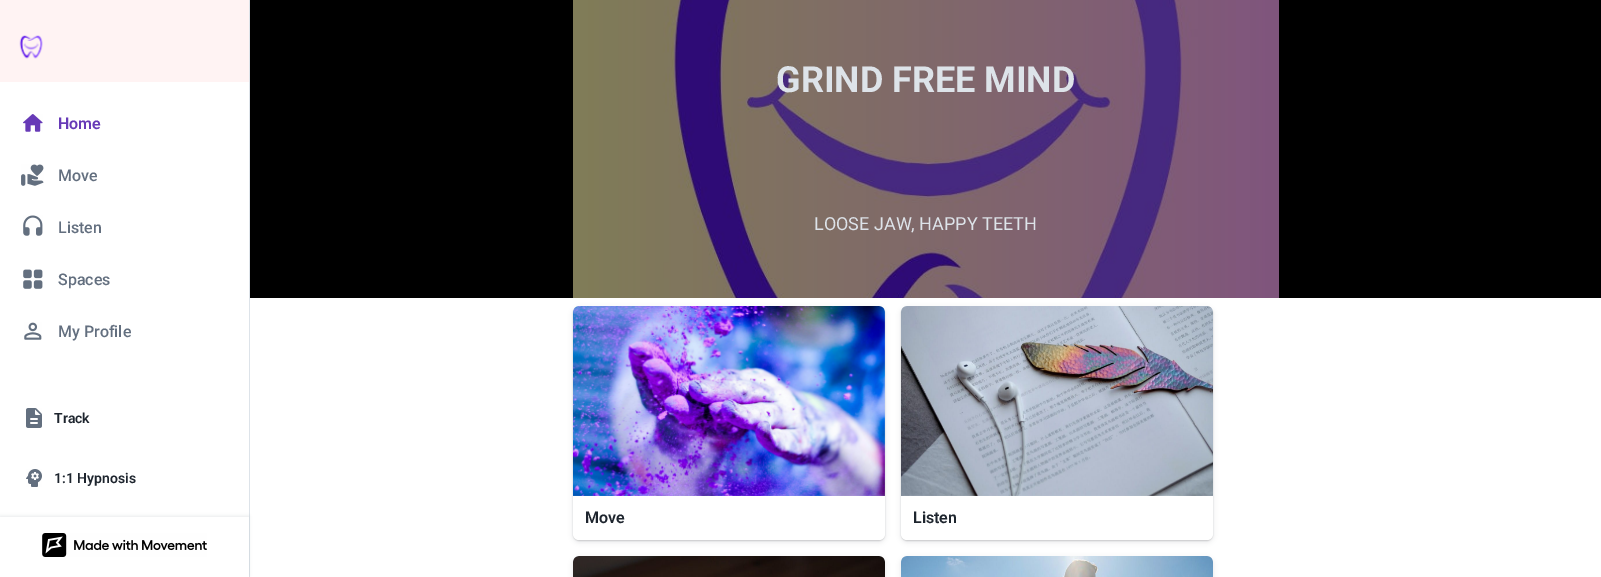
%!PS
<< /PageSize [1601 577] /PageUsesTransparency true >> setpagedevice
/rgb { 3 { 255 div 3 1 roll } repeat setrgbcolor } def
/font { [ exch dup neg 0 0 3 -1 roll 0 0 ] selectfont } def
/text { moveto show } def
/alpha { dup .setfillconstantalpha .setstrokeconstantalpha } def
/roundrect { 5 dict begin { /r /h /w /y /x } { exch def } forall
  x r add y moveto x w add y 2 copy h add r arct x w add y h add x 1 index r arct
  x y h add x y r arct x y 2 copy exch w add exch r arct closepath end } def
/shadow { 12 dict begin { /a /b /q /h /w /y /x } { exch def } forall gsave /was 0 def
  9 -2 -9 { dup b mul 4 div /e exch def 1 sub .425 mul 2.718 exch exp 1 add a .99 .min exch div /now exch def
    1 1 now sub 1 was sub div sub alpha /was now def
    w h .min e 2 mul add 0 gt { x e sub y e sub w e 2 mul add h e 2 mul add
      q e add b .6 mul add w h .min 2 div e add .min 0 .max roundrect fill } if } for grestore end } def
/picture { 5 dict begin { /h /w /y /x /name } { exch def } forall
  gsave x y translate w h scale
  w h 8 [w 0 0 h 0 0] name (r) file false 3 colorimage grestore end } def
0 .pushpdf14devicefilter
0 577 translate 1 -1 scale
4 setmiterlimit
255 255 255 rgb
0 0 1601 577 rectfill
221 227 233 rgb
249 0 1 577 rectfill
255 243 243 rgb
0 0 249 82 rectfill
(img_01.rgb) 19 35 24 24 picture
(img_02.rgb) 23 114 20 18 picture
(img_03.rgb) 21 164 23 22 picture
(img_04.rgb) 23 215 20 21 picture
(img_05.rgb) 23 269 20 20 picture
(img_06.rgb) 24 322 18 18 picture
(img_07.rgb) 26 408 16 20 picture
(img_08.rgb) 26 469 16 18 picture
gsave
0 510 moveto 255 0 rlineto 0 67 rlineto -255 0 rlineto closepath 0 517 moveto 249 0 rlineto 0 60 rlineto -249 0 rlineto closepath eoclip newpath
56 66 80 rgb
0 516 249 60 0 1.5 0.1 shadow
grestore
(img_09.rgb) 42 533 165 24 picture
0 0 0 rgb
250 0 1351 298 rectfill
(img_10.rgb) 573 0 706 298 picture
573 307 312 234 6 0.5 0.12 shadow
60 66 87 rgb
573 308 312 234 6 2.5 0.12 shadow
255 255 255 rgb
573 306 312 234 6 roundrect fill
221 227 233 rgb
579 306 moveto 300 0 rlineto 3.5 0 6 2.5 6 6 rcurveto 0 184 rlineto -312 0 rlineto 0 -184 rlineto 0 -3.5 2.5 -6 6 -6 rcurveto closepath fill
(img_11.rgb) 573 306 312 190 picture
0 0 0 rgb
901 307 312 234 6 0.5 0.12 shadow
60 66 87 rgb
901 308 312 234 6 2.5 0.12 shadow
255 255 255 rgb
901 306 312 234 6 roundrect fill
221 227 233 rgb
907 306 moveto 300 0 rlineto 3.5 0 6 2.5 6 6 rcurveto 0 184 rlineto -312 0 rlineto 0 -184 rlineto 0 -3.5 2.5 -6 6 -6 rcurveto closepath fill
(img_12.rgb) 901 306 312 190 picture
60 66 87 rgb
573 558 312 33 6 2.5 0.12 shadow
221 227 233 rgb
579 556 moveto 300 0 rlineto 3.5 0 6 2.5 6 6 rcurveto 0 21 rlineto -312 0 rlineto 0 -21 rlineto 0 -3.5 2.5 -6 6 -6 rcurveto closepath fill
(img_13.rgb) 573 556 312 21 picture
60 66 87 rgb
901 558 312 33 6 2.5 0.12 shadow
221 227 233 rgb
907 556 moveto 300 0 rlineto 3.5 0 6 2.5 6 6 rcurveto 0 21 rlineto -312 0 rlineto 0 -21 rlineto 0 -3.5 2.5 -6 6 -6 rcurveto closepath fill
(img_14.rgb) 901 556 312 21 picture
/Roboto-SemiBold 16 font
103 58 183 rgb
(Home) 58 129 text
/Roboto-Medium 16 font
99 111 127 rgb
(Move) 58 181 text
(Listen) 58 233 text
(Spaces) 58 285 text
(My Profile) 58 337 text
/Roboto-SemiBold 14 font
30 37 46 rgb
(Track) 54 423 text
(1:1 Hypnosis) 54 483 text
/Roboto-Bold 36 font
221 227 233 rgb
(GRIND FREE MIND) 776 92 text
/Roboto-Regular 18 font
(LOOSE JAW, HAPPY TEETH) 814 230 text
/Roboto-SemiBold 16 font
30 37 46 rgb
(Move) 585 523 text
(Listen) 913 523 text
.poppdf14devicefilter showpage
